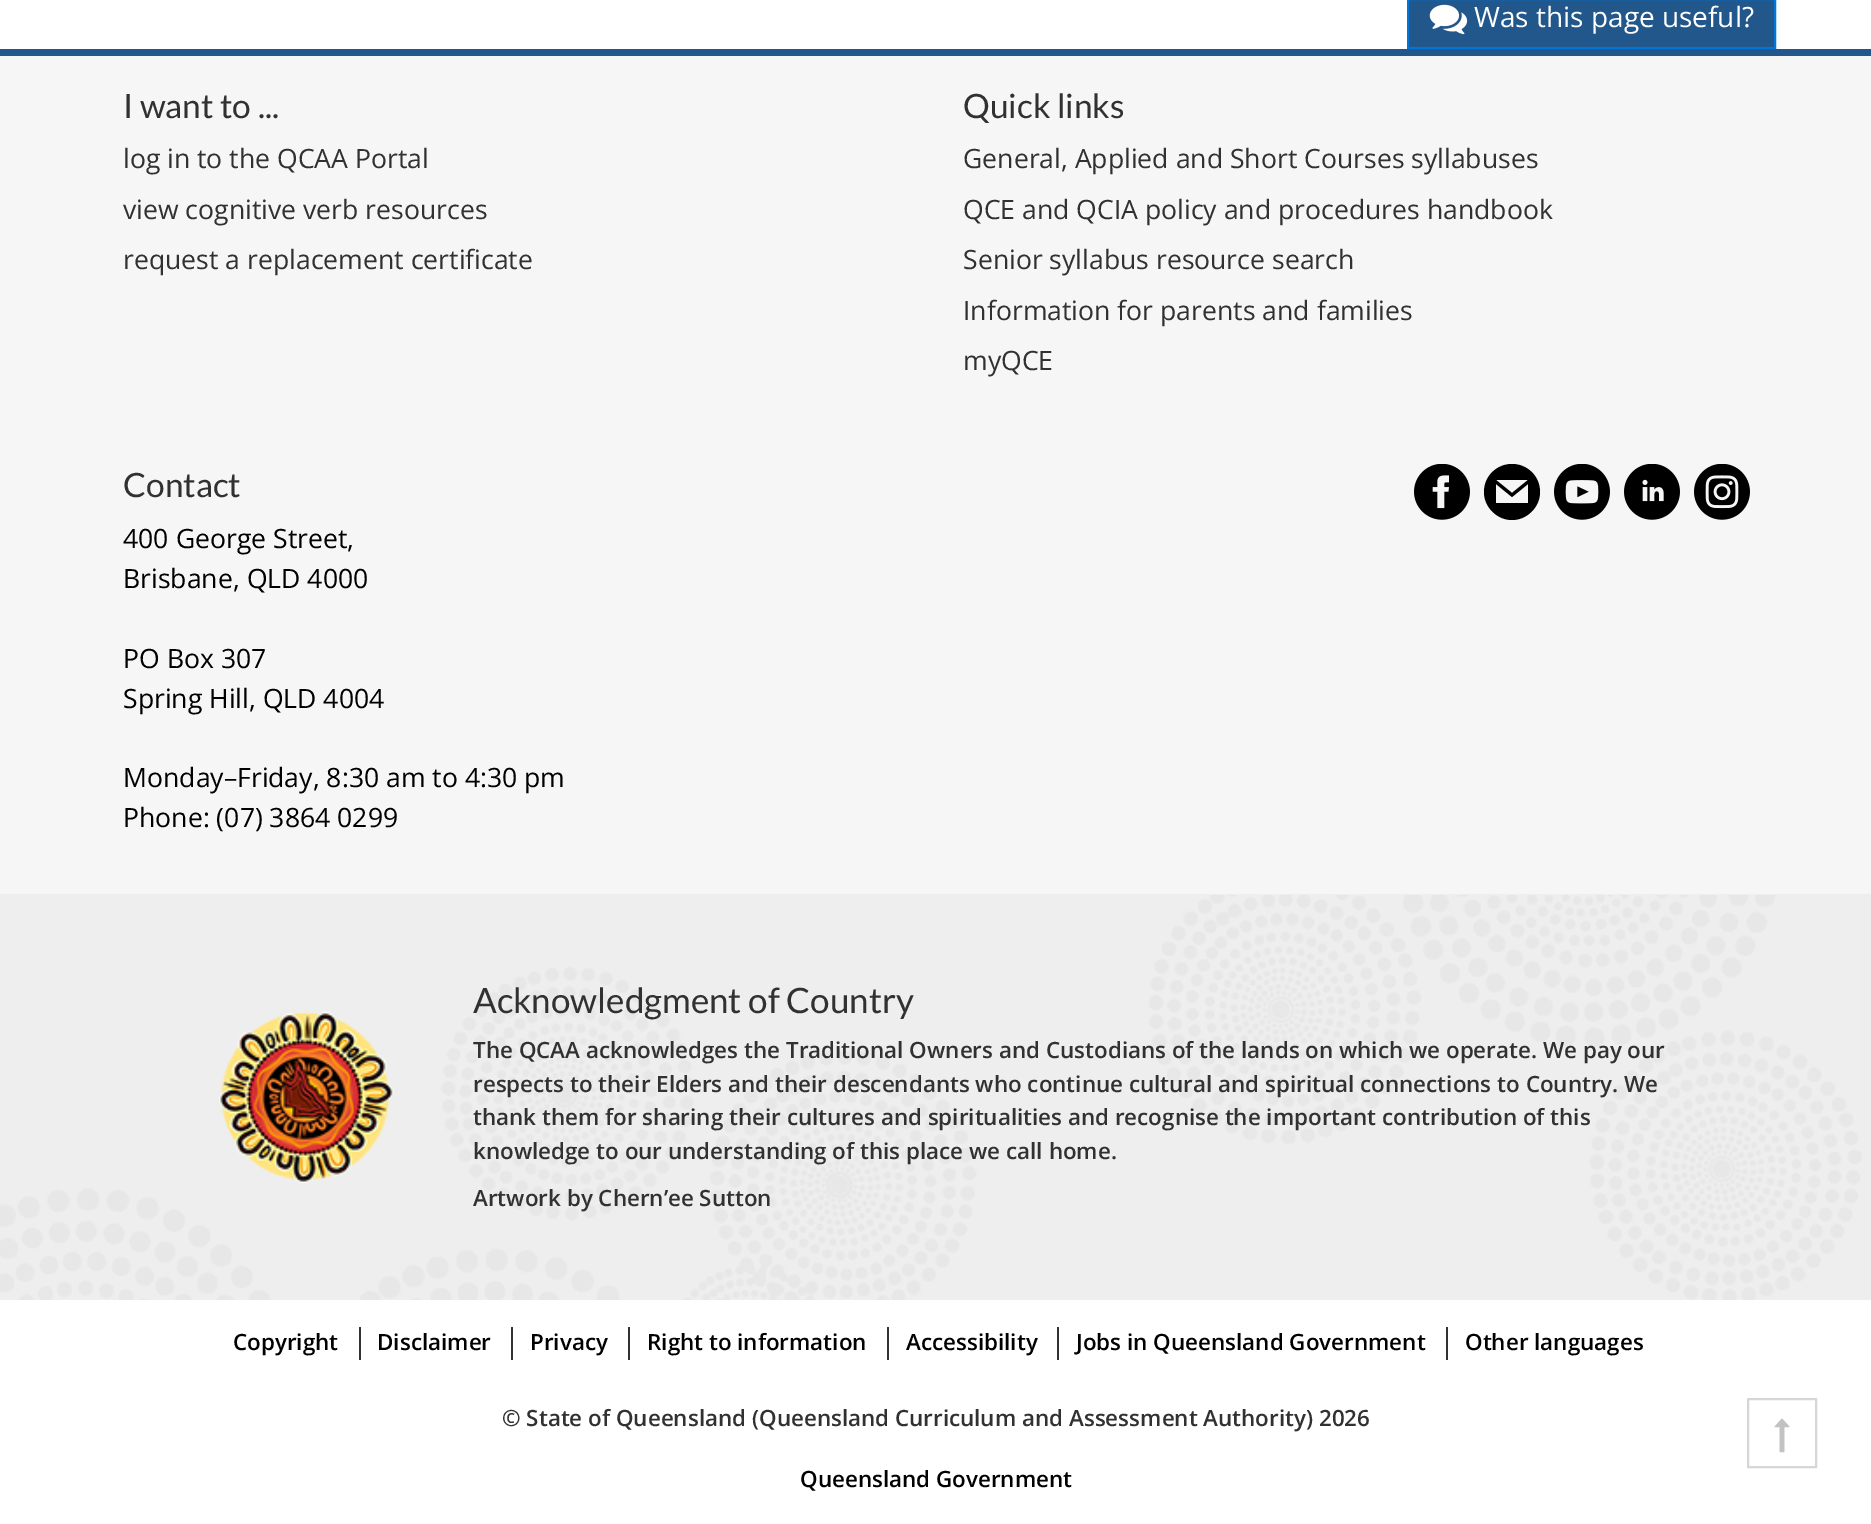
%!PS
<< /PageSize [1871 1524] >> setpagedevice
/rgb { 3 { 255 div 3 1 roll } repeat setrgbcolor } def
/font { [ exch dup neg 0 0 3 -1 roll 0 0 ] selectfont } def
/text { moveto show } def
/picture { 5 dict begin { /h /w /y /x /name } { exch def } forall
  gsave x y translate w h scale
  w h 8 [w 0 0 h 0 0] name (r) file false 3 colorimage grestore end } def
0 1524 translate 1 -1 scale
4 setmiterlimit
255 255 255 rgb
0 0 1871 1524 rectfill
33 87 138 rgb
0 49 1871 7 rectfill
1408 -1 moveto 367 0 rlineto 0 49 rlineto -367 0 rlineto closepath gsave fill grestore
2 117 216 rgb
2 setlinewidth
stroke
(img_01.rgb) 1429 4 39 31 picture
246 246 246 rgb
0 56 1871 838 rectfill
(img_02.rgb) 1414 464 56 56 picture
0 0 0 rgb
1512 464 moveto -15 0 -28 12 -28 28 rcurveto 0 15 13 28 28 28 rcurveto 15 0 28 -13 28 -28 rcurveto 0 -16 -13 -28 -28 -28 rcurveto closepath 1528 480 moveto -16 13 rlineto -16 -13 rlineto closepath 1528 503 moveto -32 0 rlineto 0 -19 rlineto 16 13 rlineto 16 -13 rlineto closepath fill
(img_03.rgb) 1554 464 56 56 picture
(img_04.rgb) 1624 464 56 56 picture
(img_05.rgb) 1694 464 56 56 picture
238 238 238 rgb
0 894 1871 406 rectfill
(img_06.rgb) 0 895 1862 405 picture
(img_07.rgb) 219 1011 175 172 picture
49 49 49 rgb
359 1327 2 33 rectfill
511 1327 2 33 rectfill
628 1327 2 33 rectfill
887 1327 2 33 rectfill
1057 1327 2 33 rectfill
1446 1327 2 33 rectfill
214 214 214 rgb
1748 1399 68 68 rectstroke
(img_08.rgb) 1774 1418 16 35 picture
/OpenSans-Regular 28 font
255 255 255 rgb
(Was this page useful?) 1474 27 text
/Lato-Regular 33.5 font
49 49 49 rgb
(I want to ...) 123 118 text
/OpenSans-Regular 26.6 font
(log in to the QCAA Portal) 123 168 text
(view cognitive verb resources) 123 219 text
(request a replacement certificate) 123 269 text
/Lato-Regular 33.5 font
(Quick links) 963 118 text
/OpenSans-Regular 26.6 font
(General, Applied and Short Courses syllabuses) 963 168 text
(QCE and QCIA policy and procedures handbook) 963 219 text
(Senior syllabus resource search) 963 269 text
(Information for parents and families) 963 320 text
(myQCE) 963 370 text
/Lato-Regular 33.5 font
(Contact) 123 497 text
/OpenSans-Regular 26.6 font
0 0 0 rgb
(400 George Street,) 123 548 text
(Brisbane, QLD 4000) 123 588 text
(PO Box 307) 123 668 text
(Spring Hill, QLD 4004) 123 708 text
(Monday–Friday, 8:30 am to 4:30 pm) 123 787 text
(Phone: \(07\) 3864 0299) 123 827 text
/Lato-Regular 35 font
49 49 49 rgb
(Acknowledgment of Country) 473 1013 text
/OpenSans-SemiBold 22.4 font
(The QCAA acknowledges the Traditional Owners and Custodians of the lands on which we operate. We pay our) 473 1058 text
(respects to their Elders and their descendants who continue cultural and spiritual connections to Country. We) 473 1092 text
(thank them for sharing their cultures and spiritualities and recognise the important contribution of this) 473 1125 text
(knowledge to our understanding of this place we call home.) 473 1159 text
(Artwork by Chern’ee Sutton) 473 1206 text
0 0 0 rgb
(Copyright) 233 1350 text
(Disclaimer) 377 1350 text
(Privacy) 530 1350 text
(Right to information) 647 1350 text
(Accessibility) 906 1350 text
(Jobs in Queensland Government) 1076 1350 text
(Other languages) 1465 1350 text
49 49 49 rgb
(© State of Queensland \(Queensland Curriculum and Assessment Authority\) 2026) 502 1426 text
0 0 0 rgb
(Queensland Government) 800 1487 text
showpage
